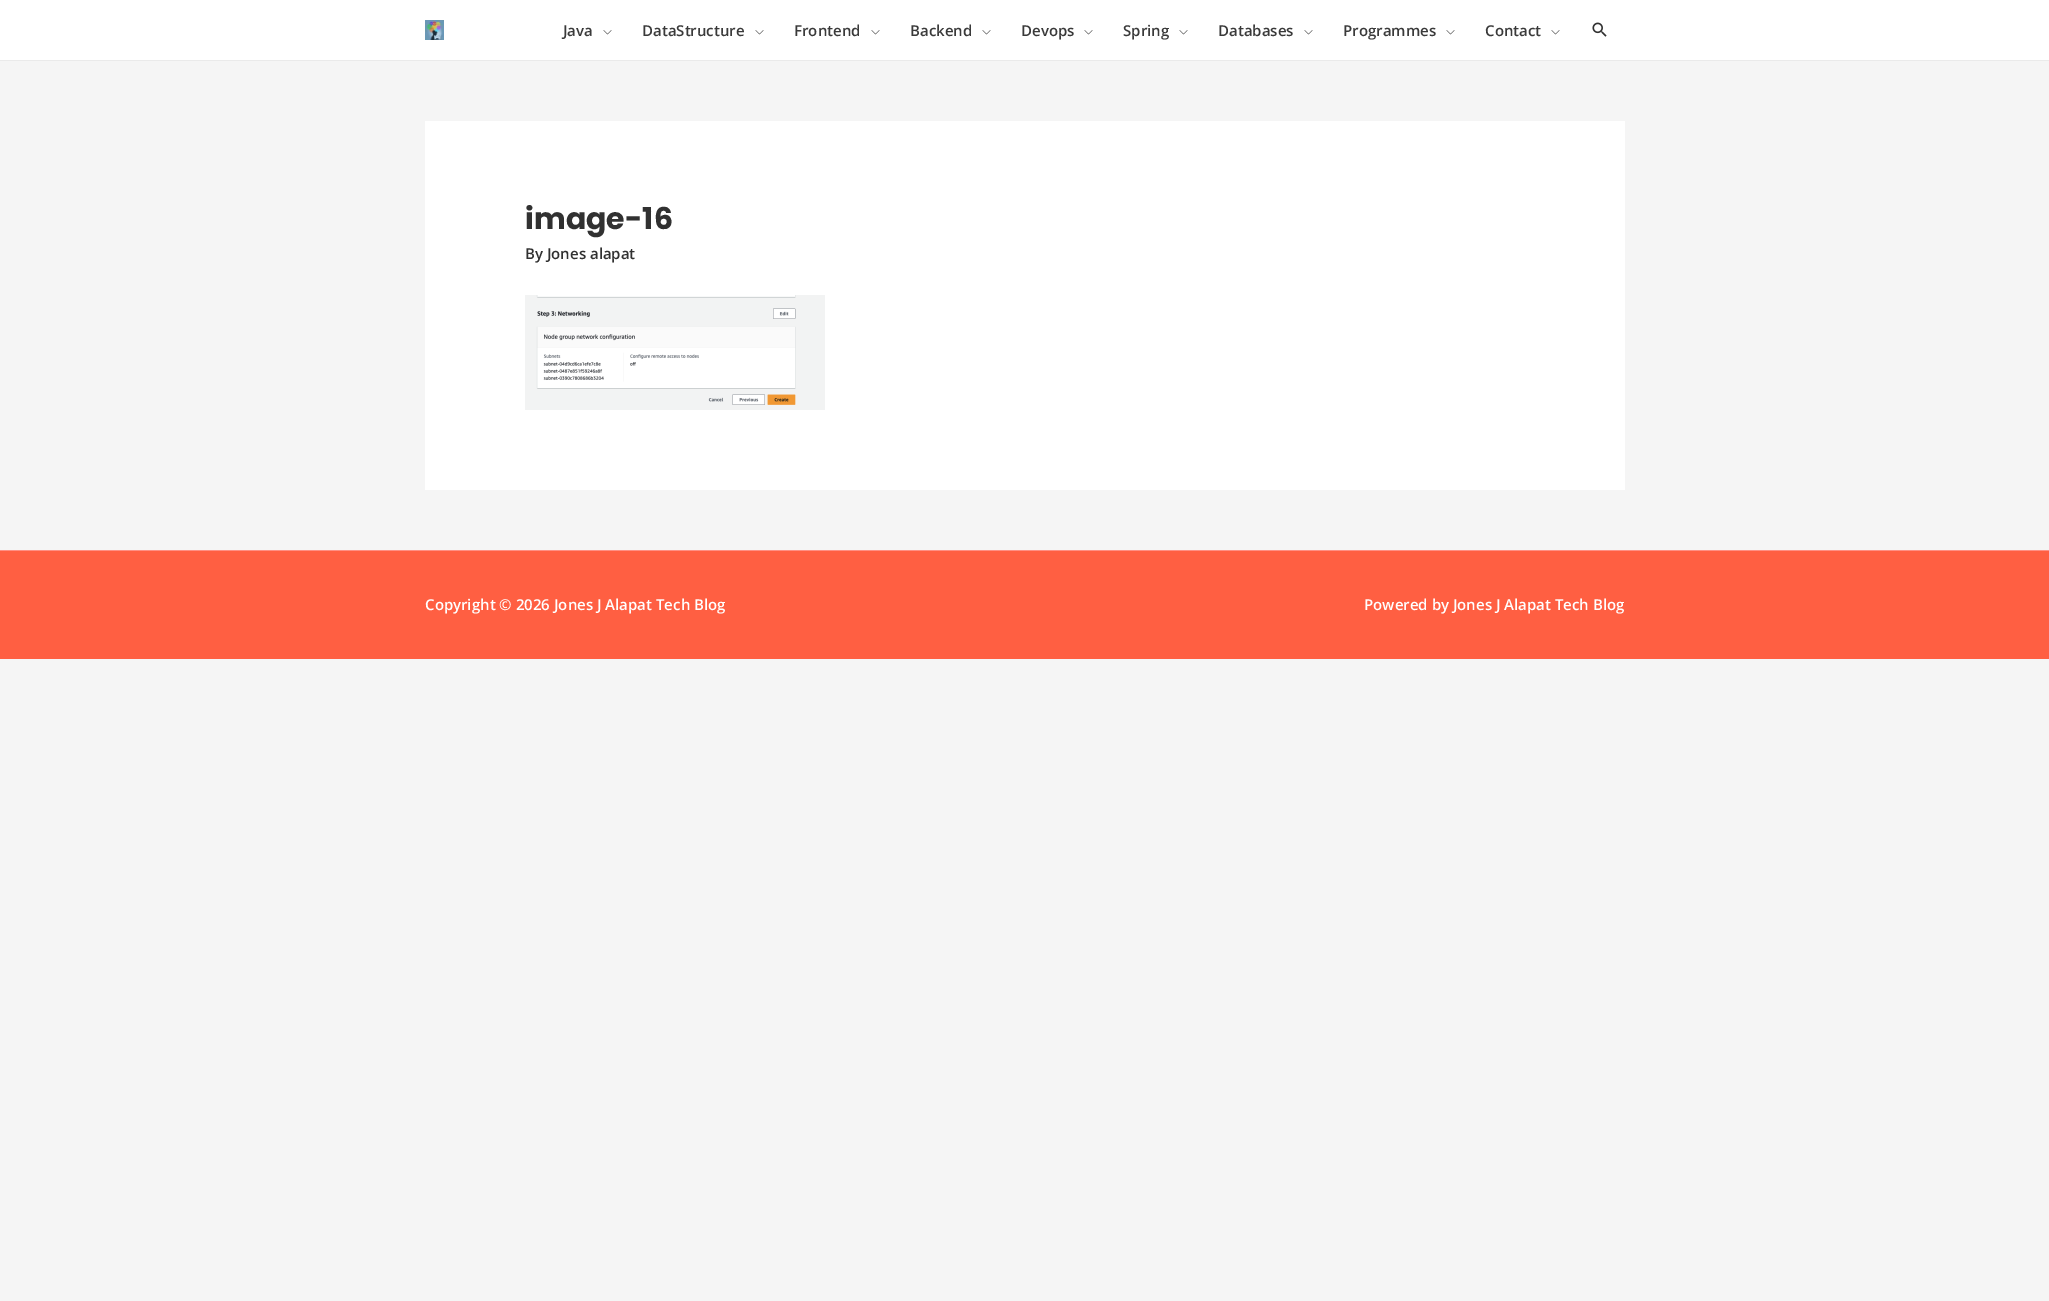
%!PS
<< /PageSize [2049 1301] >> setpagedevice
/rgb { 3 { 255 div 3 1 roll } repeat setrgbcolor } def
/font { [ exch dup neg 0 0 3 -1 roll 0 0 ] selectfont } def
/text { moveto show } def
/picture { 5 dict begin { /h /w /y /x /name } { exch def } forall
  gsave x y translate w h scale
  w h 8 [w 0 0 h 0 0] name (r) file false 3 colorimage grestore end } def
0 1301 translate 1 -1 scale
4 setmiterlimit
245 245 245 rgb
0 0 2049 1301 rectfill
255 255 255 rgb
0 0 2049 60 rectfill
234 234 234 rgb
0 60 2049 1 rectfill
(img_01.rgb) 425 20 19 20 picture
(img_02.rgb) 603 30 9 5 picture
(img_02.rgb) 755 30 9 5 picture
(img_02.rgb) 871 30 9 5 picture
(img_02.rgb) 982 30 9 5 picture
(img_02.rgb) 1084 30 9 5 picture
(img_02.rgb) 1179 30 9 5 picture
(img_02.rgb) 1304 30 9 5 picture
(img_02.rgb) 1446 30 9 5 picture
(img_02.rgb) 1551 30 9 5 picture
(img_03.rgb) 1592 22 15 15 picture
255 255 255 rgb
425 121 1200 369 rectfill
(img_04.rgb) 525 295 300 115 picture
255 144 132 rgb
0 550 2049 1 rectfill
255 95 66 rgb
0 551 2049 108 rectfill
/OpenSans-SemiBold 15 font
58 58 58 rgb
(Java) 563 36 text
(DataStructure) 642 36 text
(Frontend) 794 36 text
(Backend) 910 36 text
(Devops) 1021 36 text
(Spring) 1123 36 text
(Databases) 1218 36 text
(Programmes) 1343 36 text
(Contact) 1485 36 text
/Poppins-Bold 30 font
49 49 49 rgb
(image-16) 525 229 text
/OpenSans-SemiBold 15 font
(By Jones alapat) 525 259 text
255 255 255 rgb
(Copyright © 2026 Jones J Alapat Tech Blog) 425 610 text
(Powered by Jones J Alapat Tech Blog) 1364 610 text
showpage
